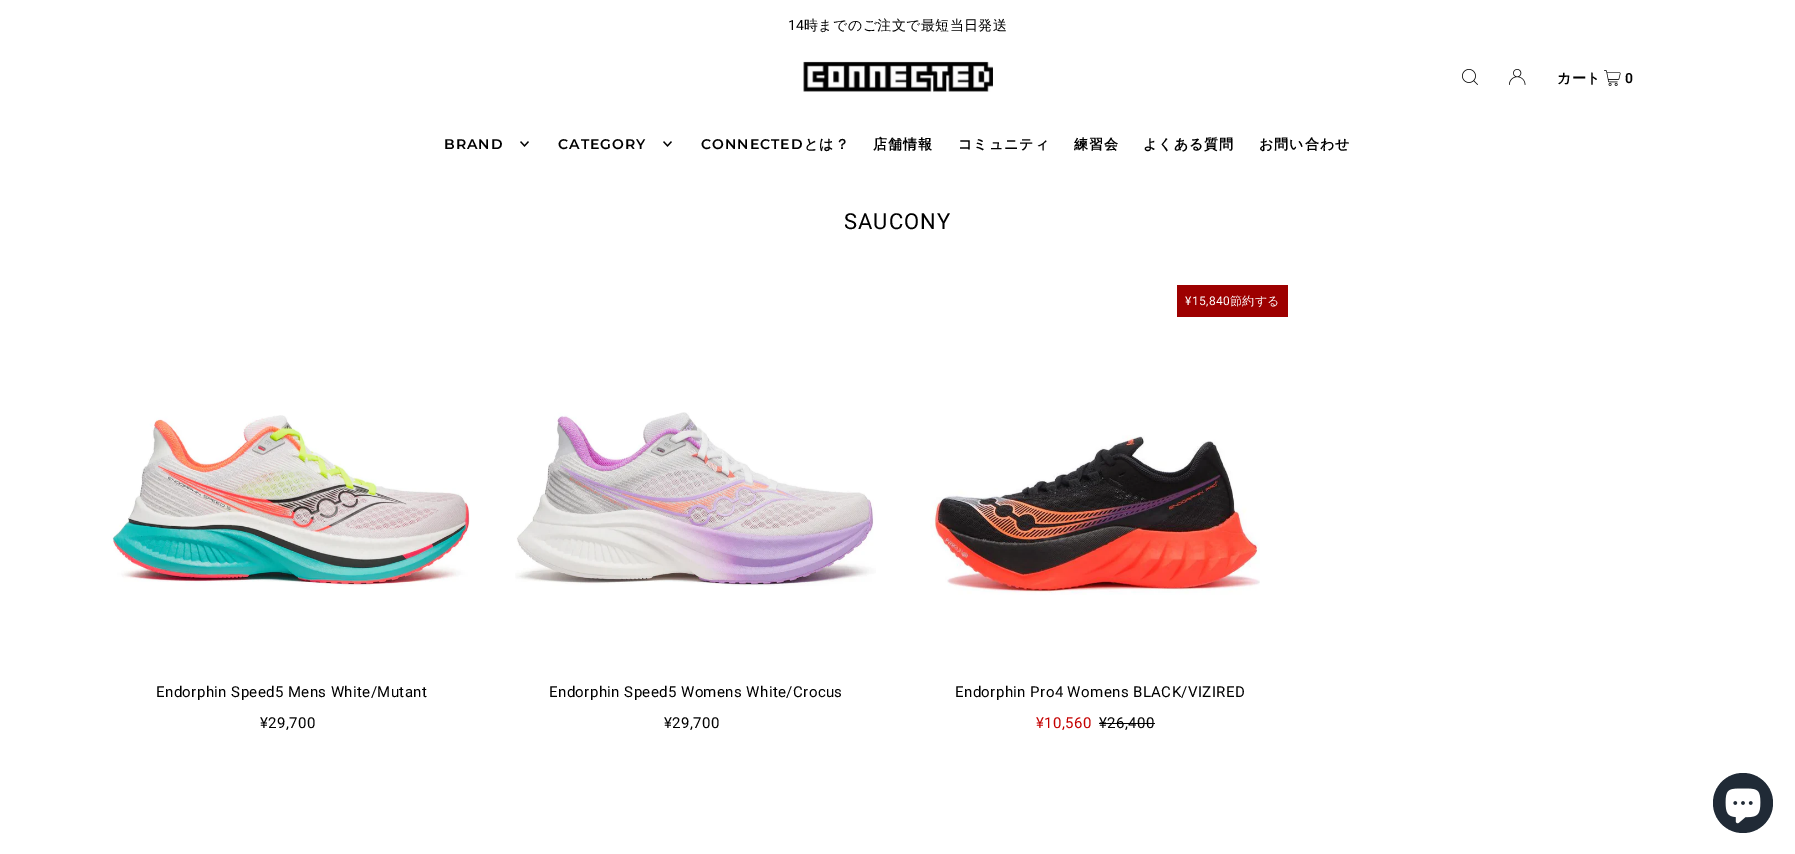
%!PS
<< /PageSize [1795 854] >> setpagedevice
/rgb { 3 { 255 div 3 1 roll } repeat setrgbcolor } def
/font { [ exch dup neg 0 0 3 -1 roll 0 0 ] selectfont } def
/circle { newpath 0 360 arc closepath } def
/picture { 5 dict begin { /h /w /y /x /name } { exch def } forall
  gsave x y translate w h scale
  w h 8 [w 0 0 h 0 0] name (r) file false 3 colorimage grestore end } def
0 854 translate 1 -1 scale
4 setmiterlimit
255 255 255 rgb
0 0 1795 854 rectfill
(img_01.rgb) 803 61 190 31 picture
(img_02.rgb) 1462 69 16 16 picture
(img_03.rgb) 1509 69 17 16 picture
(img_04.rgb) 1604 70 17 16 picture
(img_05.rgb) 520 141 9 6 picture
(img_05.rgb) 663 141 9 6 picture
(img_06.rgb) 110 415 360 171 picture
(img_07.rgb) 515 412 361 174 picture
157 0 0 rgb
1177 285 111 32 rectfill
(img_08.rgb) 930 435 330 160 picture
0 0 0 rgb
1099 723 56 1 rectfill
32 42 54 rgb
1743 803 30 circle fill
(img_09.rgb) 1725 788 36 36 picture
/Roboto-Regular 14 font
0 0 0 rgb
788 30 moveto 0.4 0 (14) ashow
/WenQuanYiZenHei-Medium 14 font
804 30 moveto 0.4 0 (時までのご注文で最短当日発送) ashow
/WenQuanYiZenHei-Bold 14 font
1557 83 moveto 0.4 0 (カート) ashow
/Roboto-SemiBold 14 font
1625 83 moveto 0.4 0 (0) ashow
/Montserrat-SemiBold 14 font
444 149 moveto 1 0 (BRAND) ashow
558 149 moveto 1 0 (CATEGORY) ashow
701 149 moveto 1 0 (CONNECTED) ashow
/WenQuanYiZenHei-Bold 14 font
804 149 moveto 1 0 (とは？) ashow
873 149 moveto 1 0 (店舗情報) ashow
958 149 moveto 1 0 (コミュニティ) ashow
1074 149 moveto 1 0 (練習会) ashow
1143 149 moveto 1 0 (よくある質問) ashow
1259 149 moveto 1 0 (お問い合わせ) ashow
/Roboto-Regular 22 font
844 229 moveto 1 0 (SAUCONY) ashow
/Roboto-Regular 15 font
156 697 moveto 0.4 0 (Endorphin Speed5 Mens White/Mutant) ashow
260 728 moveto 0.4 0 (¥29,700) ashow
549 697 moveto 0.4 0 (Endorphin Speed5 Womens White/Crocus) ashow
664 728 moveto 0.4 0 (¥29,700) ashow
/Roboto-Regular 12 font
255 255 255 rgb
1185 305 moveto 0.4 0 (¥15,840) ashow
/WenQuanYiZenHei-Medium 12 font
1230 305 moveto 0.4 0 (節約する) ashow
/Roboto-Regular 15 font
0 0 0 rgb
955 697 moveto 0.4 0 (Endorphin Pro4 Womens BLACK/VIZIRED) ashow
197 0 0 rgb
1036 728 moveto 0.4 0 (¥10,560) ashow
0 0 0 rgb
1099 728 moveto 0.4 0 (¥26,400) ashow
showpage
